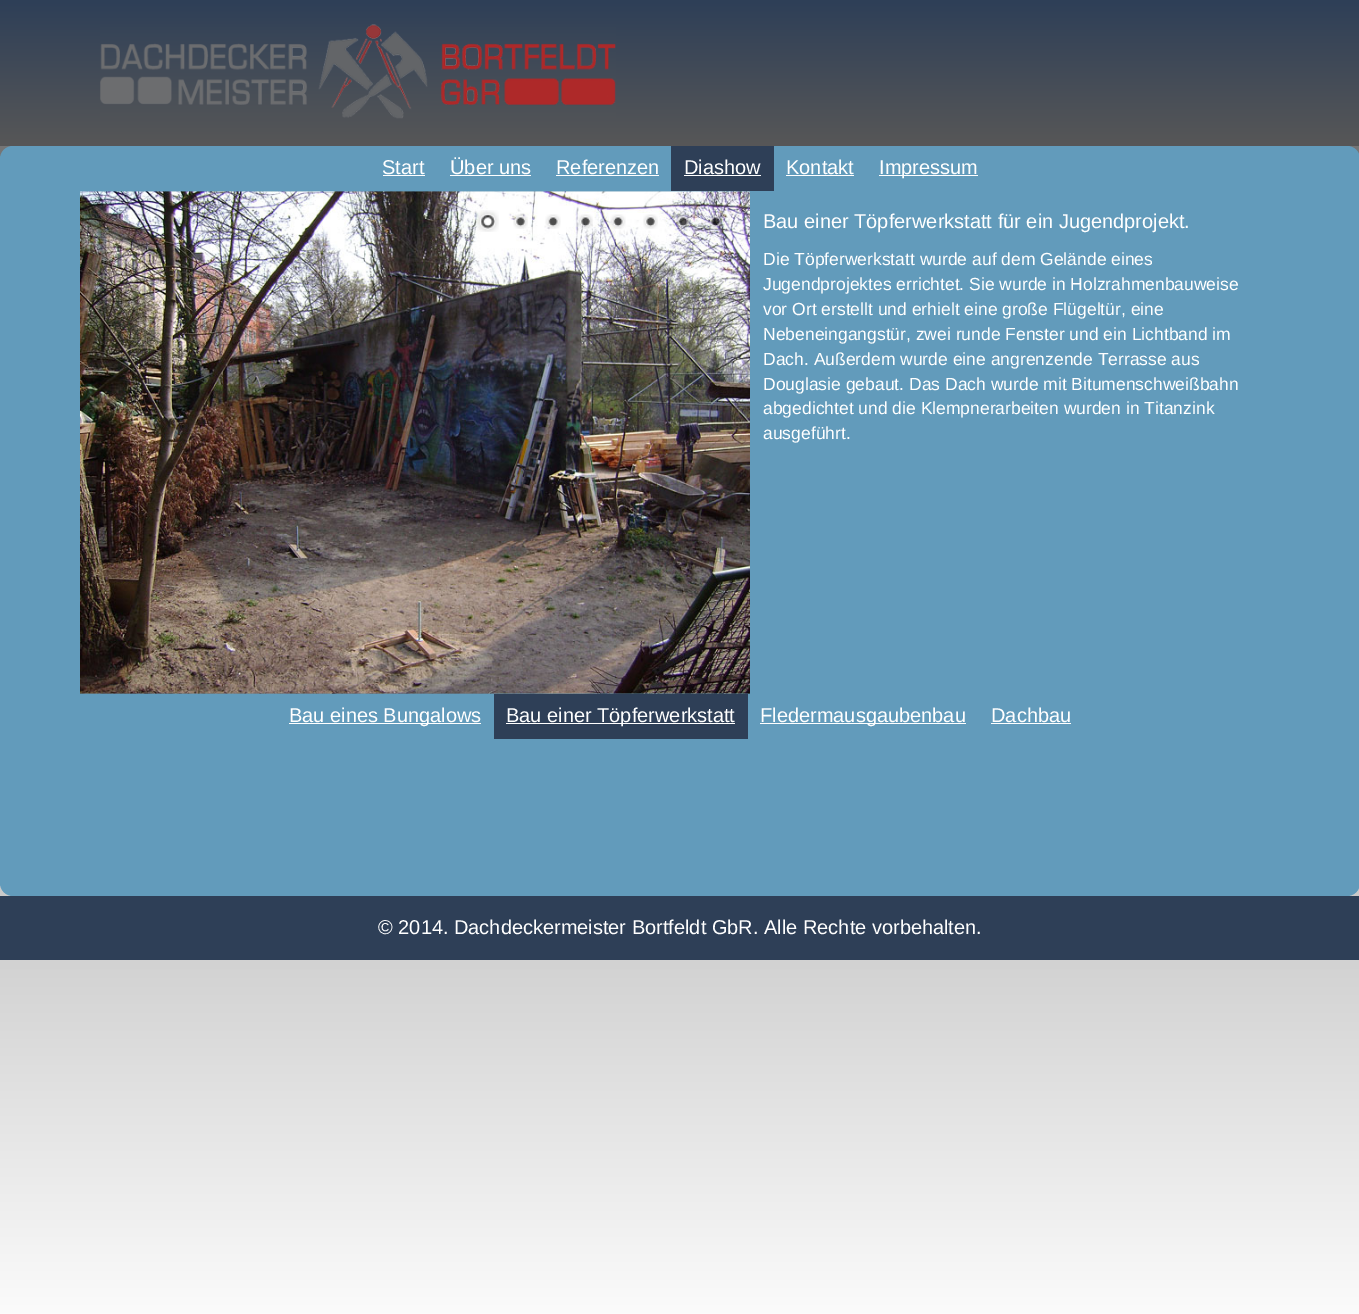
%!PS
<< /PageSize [1359 1314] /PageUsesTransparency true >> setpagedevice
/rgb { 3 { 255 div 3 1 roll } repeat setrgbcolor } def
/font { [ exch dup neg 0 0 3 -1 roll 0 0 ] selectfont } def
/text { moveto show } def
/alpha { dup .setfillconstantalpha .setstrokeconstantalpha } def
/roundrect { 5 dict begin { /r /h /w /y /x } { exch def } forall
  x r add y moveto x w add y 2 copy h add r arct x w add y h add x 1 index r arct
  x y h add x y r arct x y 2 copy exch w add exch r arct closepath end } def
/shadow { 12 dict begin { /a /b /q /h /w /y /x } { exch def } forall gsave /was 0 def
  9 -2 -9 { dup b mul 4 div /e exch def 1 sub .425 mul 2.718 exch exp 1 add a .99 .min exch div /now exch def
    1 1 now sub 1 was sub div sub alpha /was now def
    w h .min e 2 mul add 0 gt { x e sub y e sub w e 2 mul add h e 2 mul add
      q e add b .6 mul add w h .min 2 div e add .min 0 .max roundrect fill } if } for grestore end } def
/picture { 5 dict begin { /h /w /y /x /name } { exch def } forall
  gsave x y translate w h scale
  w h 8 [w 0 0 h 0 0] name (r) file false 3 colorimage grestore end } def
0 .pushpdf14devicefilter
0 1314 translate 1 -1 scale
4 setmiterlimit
255 255 255 rgb
0 0 1359 1314 rectfill
gsave 0 146 moveto 1359 0 rlineto 0 1168 rlineto -1359 0 rlineto closepath clip newpath
<< /ShadingType 2 /ColorSpace /DeviceRGB /Coords [680 0 680 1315] /Extend [true true] /Function << /FunctionType 2 /Domain [0 1] /C0 [0.392 0.392 0.392] /C1 [0.984 0.984 0.984] /N 1 >> >> shfill grestore
gsave 0 0 moveto 1359 0 rlineto 0 146 rlineto -1359 0 rlineto closepath clip newpath
<< /ShadingType 2 /ColorSpace /DeviceRGB /Coords [680 146 680 0] /Extend [true true] /Function << /FunctionType 2 /Domain [0 1] /C0 [0.341 0.341 0.341] /C1 [0.18 0.247 0.341] /N 1 >> >> shfill grestore
(img_01.rgb) 100 24 516 95 picture
98 155 187 rgb
0 146 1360 750 13 roundrect fill
255 255 255 rgb
383 175 42 1 rectfill
450 175 81 1 rectfill
556 175 103 1 rectfill
46 63 87 rgb
671 146 103 45 rectfill
255 255 255 rgb
684 175 77 1 rectfill
786 175 68 1 rectfill
879 175 99 1 rectfill
46 63 87 rgb
494 694 254 45 rectfill
gsave
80 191 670 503 rectclip
74 74 74 rgb
80 193 670 502 0 3 1 shadow
grestore
(img_02.rgb) 80 191 670 503 picture
(img_03.rgb) 476 210 23 22 picture
(img_04.rgb) 513 214 15 15 picture
(img_05.rgb) 545 214 16 15 picture
(img_06.rgb) 578 214 15 15 picture
(img_07.rgb) 610 214 16 15 picture
(img_08.rgb) 643 214 15 15 picture
(img_09.rgb) 675 214 16 15 picture
(img_10.rgb) 708 214 15 15 picture
255 255 255 rgb
289 723 192 1 rectfill
506 723 229 1 rectfill
760 723 206 1 rectfill
991 723 80 1 rectfill
46 63 87 rgb
0 896 1359 64 rectfill
/LiberationSans-Regular 20 font
255 255 255 rgb
(Start) 382 174 text
(Über uns) 450 174 text
(Referenzen) 556 174 text
(Diashow) 684 174 text
(Kontakt) 786 174 text
(Impressum) 879 174 text
(Bau einer Töpferwerkstatt für ein Jugendprojekt.) 763 228 text
/LiberationSans-Regular 17.5 font
(Die Töpferwerkstatt wurde auf dem Gelände eines) 763 265 text
(Jugendprojektes errichtet. Sie wurde in Holzrahmenbauweise) 763 290 text
(vor Ort erstellt und erhielt eine große Flügeltür, eine) 763 315 text
(Nebeneingangstür, zwei runde Fenster und ein Lichtband im) 763 340 text
(Dach. Außerdem wurde eine angrenzende Terrasse aus) 763 365 text
(Douglasie gebaut. Das Dach wurde mit Bitumenschweißbahn) 763 390 text
(abgedichtet und die Klempnerarbeiten wurden in Titanzink) 763 414 text
(ausgeführt.) 763 439 text
/LiberationSans-Regular 20 font
(Bau eines Bungalows) 289 722 text
(Bau einer Töpferwerkstatt) 506 722 text
(Fledermausgaubenbau) 760 722 text
(Dachbau) 991 722 text
(© 2014. Dachdeckermeister Bortfeldt GbR. Alle Rechte vorbehalten.) 378 934 text
.poppdf14devicefilter showpage
